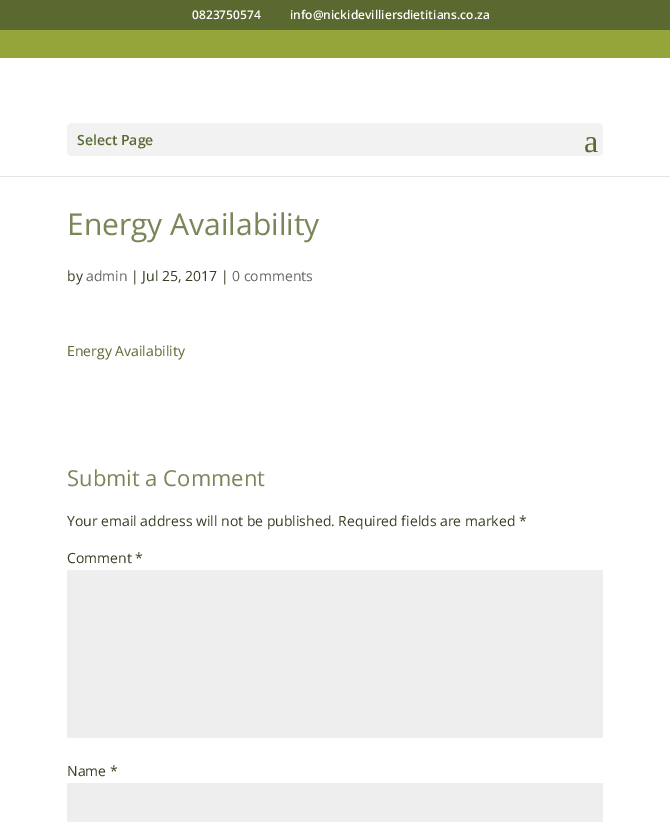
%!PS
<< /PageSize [670 822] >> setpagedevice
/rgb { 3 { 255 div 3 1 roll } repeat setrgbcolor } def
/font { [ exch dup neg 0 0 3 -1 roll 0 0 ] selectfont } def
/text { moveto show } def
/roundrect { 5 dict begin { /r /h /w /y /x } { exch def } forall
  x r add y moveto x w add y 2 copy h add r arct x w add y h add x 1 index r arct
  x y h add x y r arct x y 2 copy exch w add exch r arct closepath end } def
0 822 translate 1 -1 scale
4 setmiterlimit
149 165 58 rgb
0 0 670 822 rectfill
89 105 48 rgb
0 0 670 30 rectfill
230 230 230 rgb
0 176 670 1 rectfill
255 255 255 rgb
0 58 670 118 rectfill
242 242 242 rgb
67 123 536 33 5 roundrect fill
255 255 255 rgb
0 177 670 645 rectfill
238 238 238 rgb
67 570 536 168 rectfill
67 783 536 39 rectfill
/OpenSans-SemiBold 12 font
255 255 255 rgb
(0823750574) 192 19 text
(info@nickidevilliersdietitians.co.za) 290 19 text
/OpenSans-SemiBold 14 font
89 105 48 rgb
(Select Page) 77 145 text
/LiberationSerif-Regular 32 font
(a) 584 152 text
/OpenSans-Regular 30 font
121 134 88 rgb
(Energy Availability) 67 235 text
/OpenSans-Regular 14 font
52 63 34 rgb
(by) 67 281 text
102 102 102 rgb
(admin) 86 281 text
52 63 34 rgb
(| Jul 25, 2017 |) 131 281 text
102 102 102 rgb
(0 comments) 232 281 text
89 105 48 rgb
(Energy Availability) 67 356 text
/OpenSans-Regular 22 font
121 134 88 rgb
(Submit a Comment) 67 486 text
/OpenSans-Regular 14 font
52 63 34 rgb
(Your email address will not be published. Required fields are marked *) 67 526 text
(Comment *) 67 563 text
(Name *) 67 776 text
showpage
